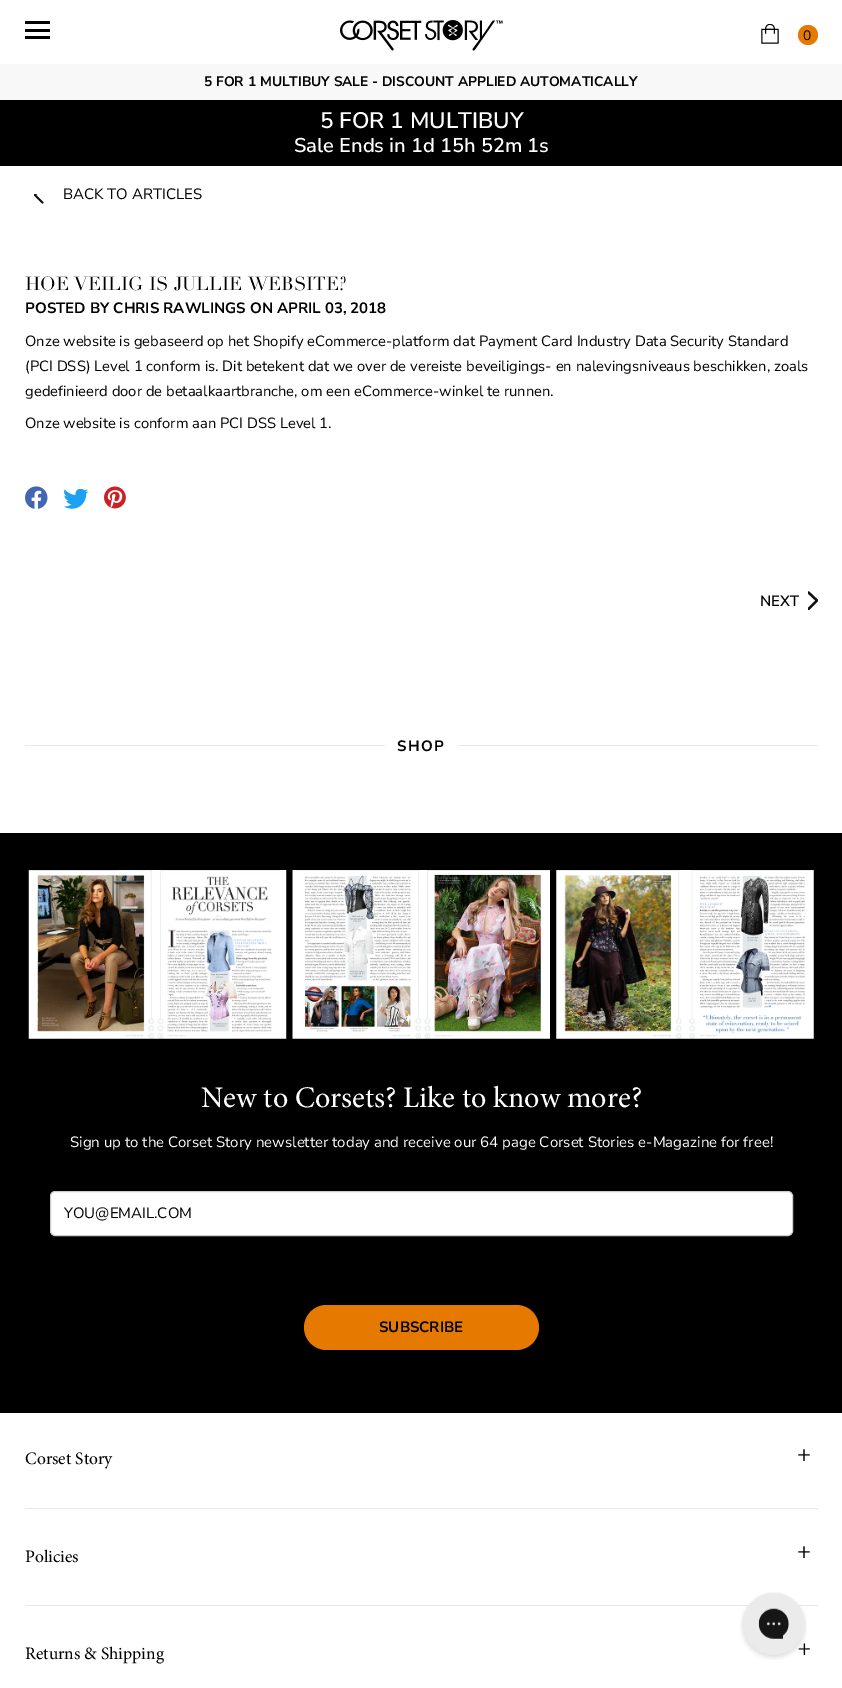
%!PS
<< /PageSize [842 1688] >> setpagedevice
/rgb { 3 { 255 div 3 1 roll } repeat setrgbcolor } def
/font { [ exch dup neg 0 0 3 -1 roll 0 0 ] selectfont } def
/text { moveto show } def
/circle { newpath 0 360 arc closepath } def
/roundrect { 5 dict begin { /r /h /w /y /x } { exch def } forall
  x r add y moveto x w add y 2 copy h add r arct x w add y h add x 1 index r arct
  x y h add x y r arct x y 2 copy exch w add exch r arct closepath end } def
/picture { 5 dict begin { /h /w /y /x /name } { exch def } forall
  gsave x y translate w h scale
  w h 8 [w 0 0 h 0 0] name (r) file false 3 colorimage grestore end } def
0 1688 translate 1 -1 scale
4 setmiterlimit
255 255 255 rgb
0 0 842 1688 rectfill
0 0 0 rgb
25 21 25 3 rectfill
25 29 25 3 rectfill
25 36 25 3 rectfill
(img_01.rgb) 340 20 163 31 picture
(img_02.rgb) 761 24 18 20 picture
230 122 1 rgb
808 35 10 circle fill
248 248 248 rgb
0 64 842 36 rectfill
0 0 0 rgb
0 100 842 66 rectfill
(img_03.rgb) 34 194 10 10 picture
(img_04.rgb) 25 486 23 23 picture
(img_05.rgb) 64 489 25 20 picture
(img_06.rgb) 104 486 22 23 picture
gsave
808 591 10 19 rectclip
17 17 17 rgb
2.3 setlinewidth
1 setlinecap
1 setlinejoin
808.5 592.5 moveto 8.5 8 rlineto -8.5 8.5 rlineto stroke
grestore
232 232 232 rgb
25 745 793 1 rectfill
255 255 255 rgb
385 745 73 1 rectfill
0 0 0 rgb
0 833 842 580 rectfill
(img_07.rgb) 28 870 259 169 picture
(img_08.rgb) 292 870 258 169 picture
(img_09.rgb) 556 870 258 169 picture
255 255 255 rgb
50.5 1191.5 742 44 4.5 roundrect gsave fill grestore
204 204 204 rgb
stroke
230 122 1 rgb
304 1305 235 45 22.5 roundrect fill
232 232 232 rgb
25 1508 793 1 rectfill
25 1605 793 1 rectfill
/NunitoSans-Regular 13.75 font
0 0 0 rgb
(0) 803 40 text
/NunitoSans-Bold 13.75 font
(5 FOR 1 MULTIBUY SALE - DISCOUNT APPLIED AUTOMATICALLY) 204 86 text
/NunitoSans-SemiBold 22.5 font
255 255 255 rgb
(5 FOR 1 MULTIBUY) 320 128 text
/NunitoSans-SemiBold 20 font
(Sale Ends in 1d 15h 52m 1s) 294 152 text
/NunitoSans-Regular 15 font
0 0 0 rgb
(BACK TO ARTICLES) 63 199 text
/Didot-Regular 18.75 font
(HOE VEILIG IS JULLIE WEBSITE?) 25 290 text
/NunitoSans-Bold 15 font
(POSTED BY CHRIS RAWLINGS ON APRIL 03, 2018) 25 313 text
/NunitoSans-Regular 14.77 font
(Onze website is gebaseerd op het Shopify eCommerce-platform dat Payment Card Industry Data Security Standard) 25 346 text
(\(PCI DSS\) Level 1 conform is. Dit betekent dat we over de vereiste beveiligings- en nalevingsniveaus beschikken, zoals) 25 371 text
(gedefinieerd door de betaalkaartbranche, om een eCommerce-winkel te runnen.) 25 396 text
(Onze website is conform aan PCI DSS Level 1.) 25 428 text
/NunitoSans-SemiBold 15 font
(NEXT) 760 606 text
/NunitoSans-Bold 15 font
397 751 moveto 1.5 0 (SHOP) ashow
/Minion-Regular 30 font
255 255 255 rgb
(New to Corsets? Like to know more?) 201 1107 text
/NunitoSans-Regular 15 font
(Sign up to the Corset Story newsletter today and receive our 64 page Corset Stories e-Magazine for free!) 70 1147 text
0 0 0 rgb
(YOU@EMAIL.COM) 64 1218 text
/NunitoSans-Bold 15 font
(SUBSCRIBE) 379 1332 text
/Minion-Regular 17.5 font
(Corset Story) 25 1464 text
/Minion-Regular 24 font
(+) 797 1461 text
/Minion-Regular 17.5 font
(Policies) 25 1562 text
/Minion-Regular 24 font
(+) 797 1558 text
/Minion-Regular 17.5 font
(Returns & Shipping) 25 1659 text
/Minion-Regular 24 font
(+) 797 1655 text
(img_10.rgb) 740 1592 67 68 picture
showpage
